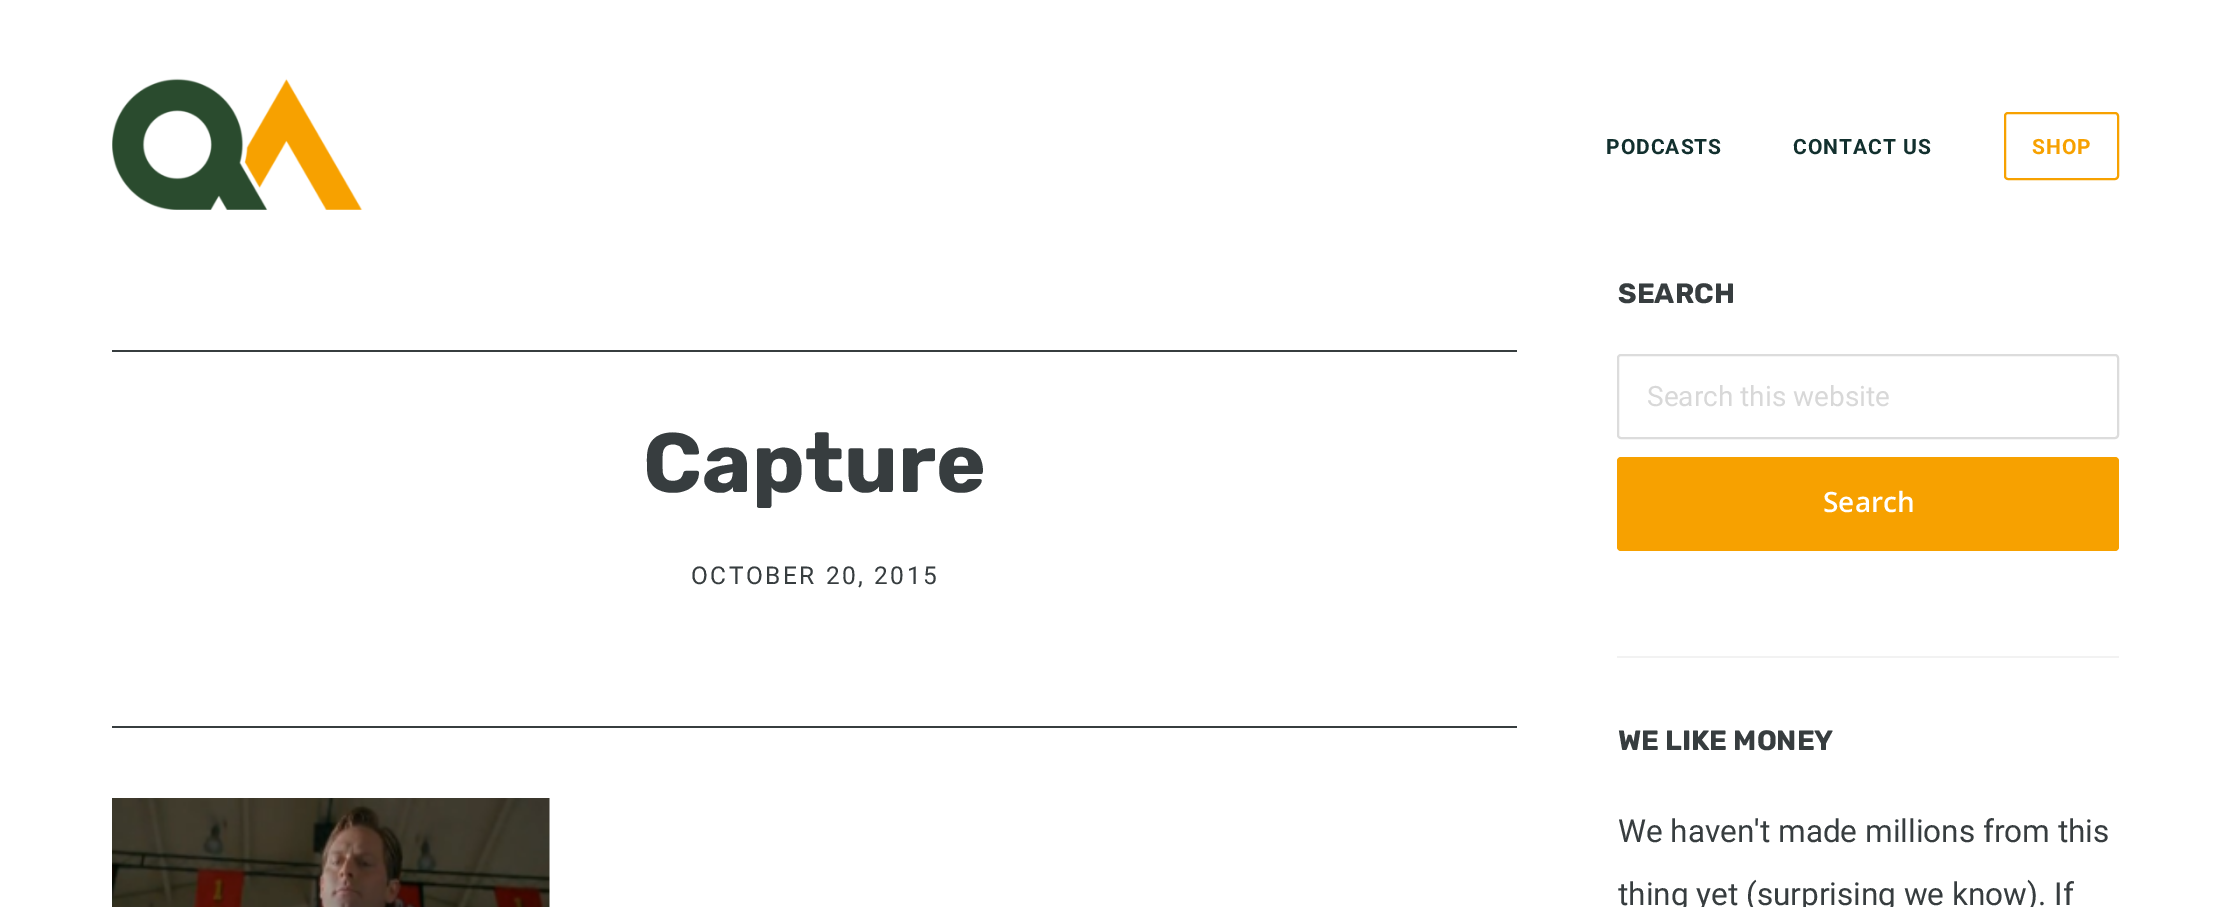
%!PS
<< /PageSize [2230 907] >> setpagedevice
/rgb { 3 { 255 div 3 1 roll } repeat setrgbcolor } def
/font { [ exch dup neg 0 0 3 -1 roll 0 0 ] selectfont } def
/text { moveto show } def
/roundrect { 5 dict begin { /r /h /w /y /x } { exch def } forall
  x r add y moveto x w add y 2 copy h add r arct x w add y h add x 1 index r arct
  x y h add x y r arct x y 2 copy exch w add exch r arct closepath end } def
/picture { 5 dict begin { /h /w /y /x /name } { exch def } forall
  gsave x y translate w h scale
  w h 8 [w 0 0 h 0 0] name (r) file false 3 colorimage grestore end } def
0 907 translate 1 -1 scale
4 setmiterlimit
255 255 255 rgb
0 0 2230 907 rectfill
(img_01.rgb) 112 78 251 132 picture
247 161 0 rgb
2 setlinewidth
2005 113 113 66 3 roundrect stroke
55 61 63 rgb
112 350 1405 2 rectfill
112 726 1405 2 rectfill
(img_02.rgb) 112 798 438 109 picture
242 242 242 rgb
1617 656 502 2 rectfill
220 220 220 rgb
1618 355 500 83 3 roundrect stroke
247 161 0 rgb
1617 457 502 94 4 roundrect fill
/Roboto-Bold 21 font
18 48 46 rgb
1606 154 moveto 1 0 (PODCASTS) ashow
1793 154 moveto 1 0 (CONTACT US) ashow
247 161 0 rgb
2032 154 moveto 1 0 (SHOP) ashow
/Rubik-Bold 84 font
55 61 63 rgb
(Capture) 643 492 text
/Roboto-Regular 24.5 font
691 584 moveto 2.5 0 (OCTOBER 20, 2015) ashow
/Rubik-Bold 28 font
(SEARCH) 1618 303 text
/Roboto-Regular 28 font
216 216 216 rgb
(Search this website) 1647 406 text
/OpenSans-SemiBold 28 font
255 255 255 rgb
(Search) 1823 512 text
/Rubik-Bold 28 font
55 61 63 rgb
(WE LIKE MONEY) 1618 750 text
/Roboto-Regular 31.5 font
(We haven't made millions from this) 1618 842 text
(thing yet \(surprising we know\). If) 1618 905 text
showpage
